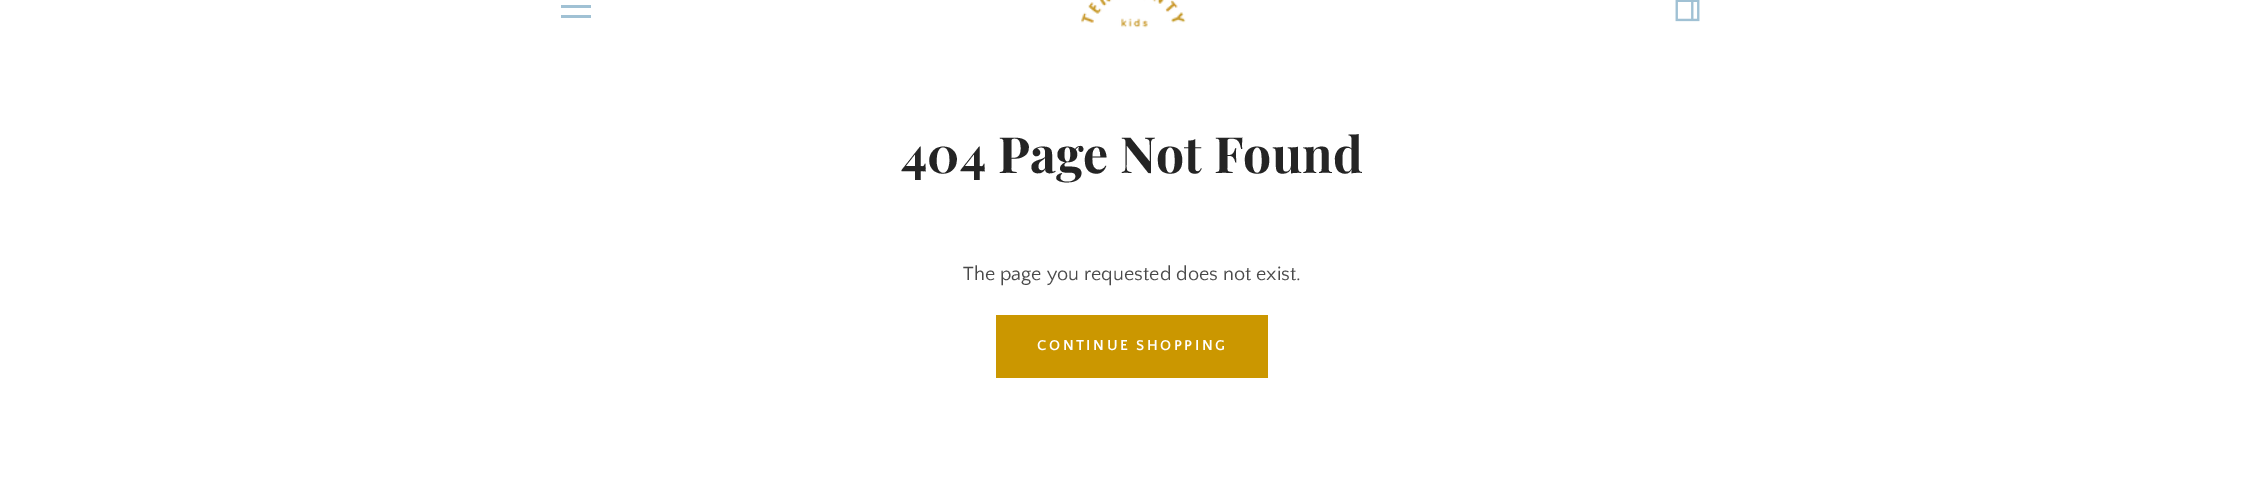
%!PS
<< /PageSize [2263 488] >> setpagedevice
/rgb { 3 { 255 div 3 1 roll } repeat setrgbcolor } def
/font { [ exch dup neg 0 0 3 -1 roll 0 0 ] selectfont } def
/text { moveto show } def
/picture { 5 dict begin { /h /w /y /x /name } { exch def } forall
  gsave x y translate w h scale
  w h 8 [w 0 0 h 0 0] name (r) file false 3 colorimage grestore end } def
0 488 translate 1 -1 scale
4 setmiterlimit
255 255 255 rgb
0 0 2263 488 rectfill
160 193 212 rgb
561 5 30 3 rectfill
561 15 30 3 rectfill
(img_01.rgb) 1081 0 105 28 picture
(img_02.rgb) 1675 0 25 22 picture
203 151 0 rgb
996 315 272 63 rectfill
/PlayfairDisplay-Bold 50 font
36 36 36 rgb
(404 Page Not Found) 901 173 text
/QuattrocentoSans-Regular 20 font
74 74 74 rgb
(The page you requested does not exist.) 963 280 text
/QuattrocentoSans-Bold 15 font
255 255 255 rgb
1037 350 moveto 2.5 0 (CONTINUE SHOPPING) ashow
showpage
